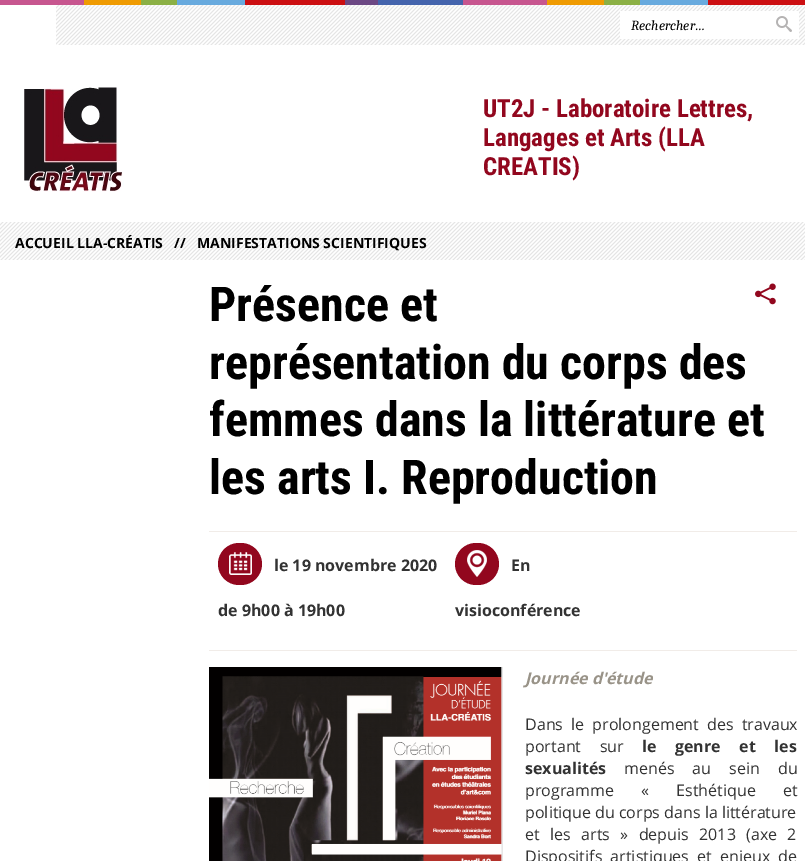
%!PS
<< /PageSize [805 861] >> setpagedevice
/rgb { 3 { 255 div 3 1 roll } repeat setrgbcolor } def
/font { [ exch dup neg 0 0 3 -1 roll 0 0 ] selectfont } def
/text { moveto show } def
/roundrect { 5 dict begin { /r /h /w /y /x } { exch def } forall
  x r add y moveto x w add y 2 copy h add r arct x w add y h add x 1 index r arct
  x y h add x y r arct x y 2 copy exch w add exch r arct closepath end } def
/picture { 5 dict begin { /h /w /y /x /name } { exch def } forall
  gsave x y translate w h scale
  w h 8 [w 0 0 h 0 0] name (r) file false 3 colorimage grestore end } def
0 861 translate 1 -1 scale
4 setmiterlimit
255 255 255 rgb
0 0 805 861 rectfill
(img_01.rgb) 0 0 805 5 picture
(img_02.rgb) 24 87 100 105 picture
229 229 229 rgb
56 5 749 40 rectfill
(img_03.rgb) 56 5 749 40 picture
255 255 255 rgb
620 11 179 28 rectfill
(img_04.rgb) 776 16 16 16 picture
229 229 229 rgb
0 222 805 38 rectfill
(img_05.rgb) 0 222 805 38 picture
(img_06.rgb) 755 283 21 22 picture
241 236 232 rgb
209 531 588 1 rectfill
209 650 588 1 rectfill
146 7 30 rgb
218 543 44 42 21 roundrect fill
(img_07.rgb) 229 552 23 23 picture
455 543 44 42 21 roundrect fill
(img_08.rgb) 467 550 20 27 picture
(img_09.rgb) 209 667 294 194 picture
/Caladea-Italic 14 font
0 0 0 rgb
(Rechercher…) 631 30 text
/RobotoCondensed-Bold 24.9 font
146 7 30 rgb
(UT2J - Laboratoire Lettres,) 483 117 text
(Langages et Arts \(LLA) 483 146 text
(CREATIS\)) 483 175 text
/OpenSans-Bold 14 font
0 0 0 rgb
(ACCUEIL LLA-CRÉATIS) 15 248 text
(//) 174 248 text
(MANIFESTATIONS SCIENTIFIQUES) 197 248 text
/RobotoCondensed-Bold 48 font
(Présence et) 209 321 text
(représentation du corps des) 209 379 text
(femmes dans la littérature et) 209 436 text
(les arts I. Reproduction) 209 494 text
/OpenSans-Bold 16 font
51 51 51 rgb
(le 19 novembre 2020) 274 571 text
(de 9h00 à 19h00) 218 616 text
(En) 511 571 text
(visioconférence) 455 616 text
/OpenSans-BoldItalic 16 font
153 147 136 rgb
(Journée d'étude) 525 684 text
/OpenSans-Regular 16 font
51 51 51 rgb
525 730 moveto 4 0 32 (Dans le prolongement des travaux) widthshow
525 752 moveto 14.5 0 32 (portant sur) widthshow
/OpenSans-Bold 16 font
642 752 moveto 14.5 0 32 (le genre et les) widthshow
(sexualités) 525 774 text
/OpenSans-Regular 16 font
624 774 moveto 14 0 32 (menés au sein du) widthshow
525 796 moveto 23 0 32 (programme « Esthétique et) widthshow
(politique du corps dans la littérature) 525 818 text
525 840 moveto 6.25 0 32 (et les arts » depuis 2013 \(axe 2) widthshow
525 862 moveto 4 0 32 (Dispositifs artistiques et enjeux de) widthshow
showpage
